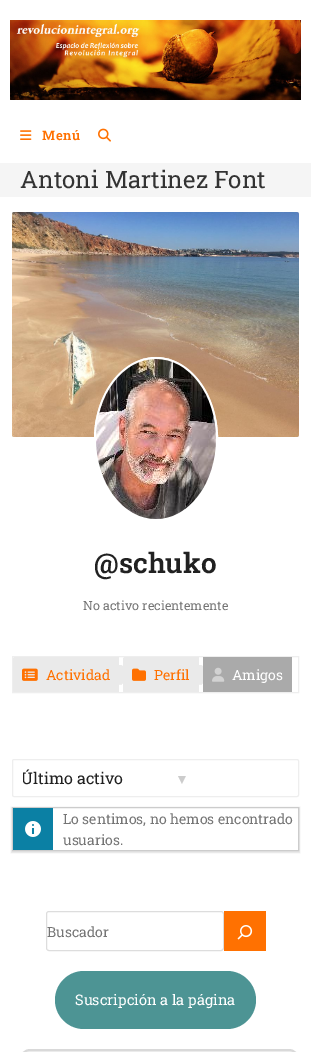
%!PS
<< /PageSize [311 1052] /PageUsesTransparency true >> setpagedevice
/rgb { 3 { 255 div 3 1 roll } repeat setrgbcolor } def
/font { [ exch dup neg 0 0 3 -1 roll 0 0 ] selectfont } def
/text { moveto show } def
/alpha { dup .setfillconstantalpha .setstrokeconstantalpha } def
/roundrect { 5 dict begin { /r /h /w /y /x } { exch def } forall
  x r add y moveto x w add y 2 copy h add r arct x w add y h add x 1 index r arct
  x y h add x y r arct x y 2 copy exch w add exch r arct closepath end } def
/shadow { 12 dict begin { /a /b /q /h /w /y /x } { exch def } forall gsave /was 0 def
  9 -2 -9 { dup b mul 4 div /e exch def 1 sub .425 mul 2.718 exch exp 1 add a .99 .min exch div /now exch def
    1 1 now sub 1 was sub div sub alpha /was now def
    w h .min e 2 mul add 0 gt { x e sub y e sub w e 2 mul add h e 2 mul add
      q e add b .6 mul add w h .min 2 div e add .min 0 .max roundrect fill } if } for grestore end } def
/picture { 5 dict begin { /h /w /y /x /name } { exch def } forall
  gsave x y translate w h scale
  w h 8 [w 0 0 h 0 0] name (r) file false 3 colorimage grestore end } def
0 .pushpdf14devicefilter
0 1052 translate 1 -1 scale
4 setmiterlimit
255 255 255 rgb
0 0 311 1052 rectfill
(img_01.rgb) 10 20 291 80 picture
(img_02.rgb) 20 130 12 10 picture
(img_03.rgb) 98 128 13 14 picture
245 245 245 rgb
0 163 311 34 rectfill
(img_04.rgb) 12 212 287 225 picture
0.8 alpha
255 255 255 rgb
156 357 moveto 34 0 62 36.5 62 82 rcurveto 0 45.5 -28 82 -62 82 rcurveto -34 0 -62 -36.5 -62 -82 rcurveto 0 -45.5 28 -82 62 -82 rcurveto closepath fill
1 alpha
2 setlinewidth
156 358 moveto 33.5 0 61 36.5 61 81 rcurveto 0 44.5 -27.5 81 -61 81 rcurveto -33.5 0 -61 -36.5 -61 -81 rcurveto 0 -44.5 27.5 -81 61 -81 rcurveto closepath stroke
(img_05.rgb) 96 359 120 160 picture
238 238 238 rgb
1 setlinewidth
12.5 656.5 286 36 rectstroke
234 234 234 rgb
15 657 moveto 104 0 rlineto 0 35 rlineto -104 0 rlineto -1 0 -2 0 -2 -1 rcurveto 0 -32 rlineto 0 -1 1 -2 2 -2 rcurveto closepath fill
119 665 moveto 4 0 4 0.5 4 4.5 rcurveto 0 11 rlineto 0 4 0 3.5 -4 3.5 rcurveto closepath fill
238 238 238 rgb
119 684 3 1 rectfill
(img_06.rgb) 22 668 16 13 picture
234 234 234 rgb
125 657 moveto 74 0 rlineto 0 35 rlineto -74 0 rlineto -1 0 -2 0 -2 -1 rcurveto 0 -32 rlineto 0 -1 1 -2 2 -2 rcurveto closepath fill
199 665 moveto 4 0 4 0.5 4 4.5 rcurveto 0 11 rlineto 0 4 0 3.5 -4 3.5 rcurveto closepath fill
238 238 238 rgb
199 684 3 1 rectfill
(img_07.rgb) 132 668 14 13 picture
170 170 170 rgb
203 657 89 35 rectfill
(img_08.rgb) 212 667 13 15 picture
238 238 238 rgb
12.5 759.5 286 37 1.5 roundrect stroke
gsave
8 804 moveto 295 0 rlineto 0 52 rlineto -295 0 rlineto closepath 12 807 moveto 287 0 rlineto 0 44 rlineto -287 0 rlineto closepath eoclip newpath
0 0 0 rgb
11 807 289 46 0 0.5 0.1 shadow
grestore
204 204 204 rgb
12.5 807.5 286 43 rectstroke
11 128 164 rgb
13 808 40 42 rectfill
(img_09.rgb) 25 821 16 16 picture
221 221 221 rgb
46.5 911.5 177 39 2.5 roundrect stroke
255 113 1 rgb
224 911 42 40 rectfill
(img_10.rgb) 237 925 16 15 picture
77 148 148 rgb
55 971 201 58 29 roundrect fill
242 242 242 rgb
21 1050 277 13 9 roundrect gsave fill grestore
217 217 217 rgb
2 setlinewidth
stroke
/RobotoSlab-SemiBold 13 font
255 113 1 rgb
42 140 moveto 0.5 0 (Menú) ashow
/RobotoSlab-Regular 24 font
51 51 51 rgb
(Antoni Martinez Font) 20 188 text
/RobotoSlab-SemiBold 28 font
33 33 33 rgb
(@schuko) 94 573 text
/RobotoSlab-Regular 12.6 font
117 117 117 rgb
(No activo recientemente) 83 610 text
/RobotoSlab-Regular 14 font
255 113 1 rgb
(Actividad) 46 680 text
(Perfil) 154 680 text
255 255 255 rgb
(Amigos) 232 680 text
gsave
23 766 149 24 rectclip
/RobotoSlab-Regular 16 font
33 33 33 rgb
(Último activo) 21 784 text
grestore
/LiberationSans-Regular 14 font
204 204 204 rgb
(▼) 175 784 text
/RobotoSlab-Regular 14 font
117 117 117 rgb
(Lo sentimos, no hemos encontrado) 63 824 text
(usuarios.) 63 845 text
(Buscador) 47 937 text
/RobotoSlab-Regular 14.6 font
255 255 255 rgb
(Suscripción a la página) 75 1005 text
.poppdf14devicefilter showpage
